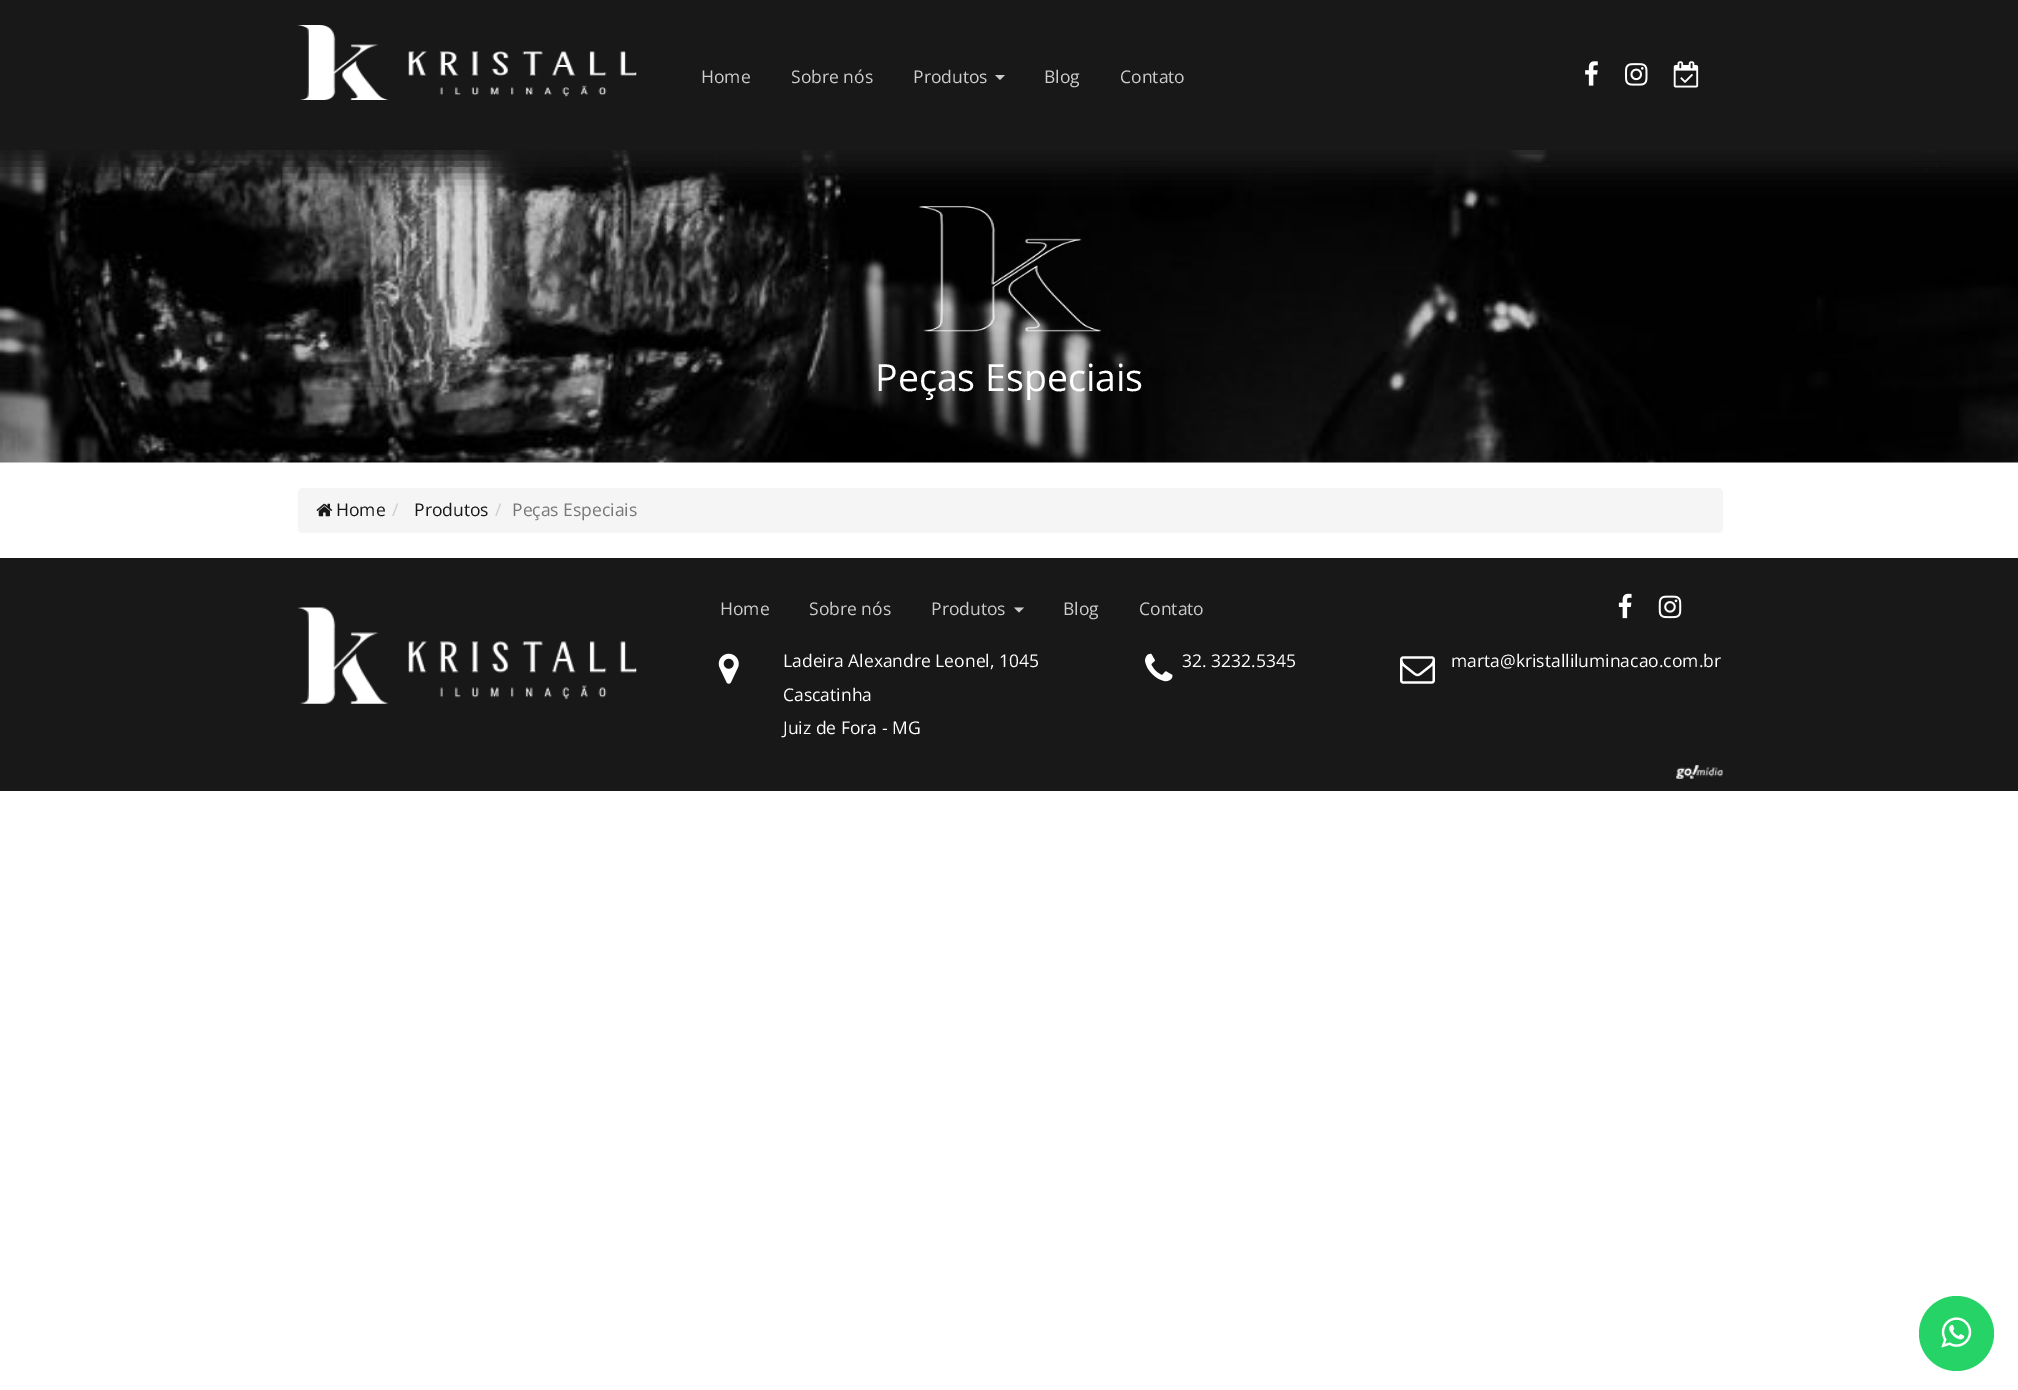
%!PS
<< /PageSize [2018 1390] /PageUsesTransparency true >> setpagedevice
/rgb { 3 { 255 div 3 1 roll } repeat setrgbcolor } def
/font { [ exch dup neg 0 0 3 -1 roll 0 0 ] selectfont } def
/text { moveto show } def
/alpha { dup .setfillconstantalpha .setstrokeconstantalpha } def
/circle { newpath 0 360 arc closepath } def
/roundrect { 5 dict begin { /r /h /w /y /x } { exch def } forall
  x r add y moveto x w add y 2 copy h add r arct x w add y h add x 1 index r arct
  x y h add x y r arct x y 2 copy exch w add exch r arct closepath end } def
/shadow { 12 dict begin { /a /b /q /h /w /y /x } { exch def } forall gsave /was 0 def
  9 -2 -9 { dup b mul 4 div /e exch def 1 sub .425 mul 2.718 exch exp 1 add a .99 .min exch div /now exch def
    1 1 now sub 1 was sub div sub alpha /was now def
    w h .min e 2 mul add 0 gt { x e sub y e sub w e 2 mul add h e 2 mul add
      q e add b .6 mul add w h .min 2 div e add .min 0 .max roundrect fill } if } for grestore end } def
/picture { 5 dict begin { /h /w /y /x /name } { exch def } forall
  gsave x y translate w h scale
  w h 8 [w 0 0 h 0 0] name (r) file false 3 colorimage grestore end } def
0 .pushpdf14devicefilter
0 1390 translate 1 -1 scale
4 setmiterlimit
255 255 255 rgb
0 0 2018 1390 rectfill
24 24 24 rgb
0 0 2018 150 rectfill
(img_05.rgb) 0 150 2018 313 picture
(img_06.rgb) 918 206 184 126 picture
gsave
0 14 moveto 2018 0 rlineto 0 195 rlineto -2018 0 rlineto closepath 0 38 moveto 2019 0 rlineto 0 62 rlineto -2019 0 rlineto closepath eoclip newpath
-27 53 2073 117 0 12.5 1 shadow
grestore
(img_01.rgb) 297 25 340 75 picture
204 204 204 rgb
995 75 moveto 10 0 rlineto -5 5 rlineto closepath fill
(img_02.rgb) 1585 61 13 25 picture
(img_03.rgb) 1625 63 23 23 picture
(img_04.rgb) 1673 61 26 27 picture
245 245 245 rgb
298 488 1425 45 5 roundrect fill
(img_07.rgb) 316 503 17 14 picture
24 24 24 rgb
0 558 2018 233 rectfill
(img_08.rgb) 297 607 340 97 picture
204 204 204 rgb
1014 607.5 moveto 10 0 rlineto -5 5 rlineto closepath fill
(img_09.rgb) 1618 593 14 26 picture
(img_10.rgb) 1658 595 24 24 picture
(img_11.rgb) 718 653 21 31 picture
(img_12.rgb) 1145 653 28 29 picture
(img_13.rgb) 1400 656 35 28 picture
(img_14.rgb) 1676 765 47 14 picture
37 211 102 rgb
1956.5 1333.5 37.5 circle fill
(img_15.rgb) 1941 1317 31 31 picture
/OpenSans-Regular 17.5 font
204 204 204 rgb
(Home) 701 83 text
(Sobre nós) 791 83 text
(Produtos) 913 83 text
(Blog) 1044 83 text
(Contato) 1120 83 text
/OpenSans-Regular 37.5 font
255 255 255 rgb
(Peças Especiais) 875 391 text
/OpenSans-Regular 17.5 font
24 24 24 rgb
(Home) 336 516 text
204 204 204 rgb
(/) 392 516 text
24 24 24 rgb
(Produtos) 414 516 text
204 204 204 rgb
(/) 495 516 text
119 119 119 rgb
(Peças Especiais) 512 516 text
204 204 204 rgb
(Home) 720 615 text
(Sobre nós) 809 615 text
(Produtos) 931 615 text
(Blog) 1063 615 text
(Contato) 1139 615 text
255 255 255 rgb
(Ladeira Alexandre Leonel, 1045) 783 667 text
(Cascatinha) 783 701 text
(Juiz de Fora - MG) 783 734 text
(32. 3232.5345) 1182 667 text
(marta@kristalliluminacao.com.br) 1451 667 text
.poppdf14devicefilter showpage
